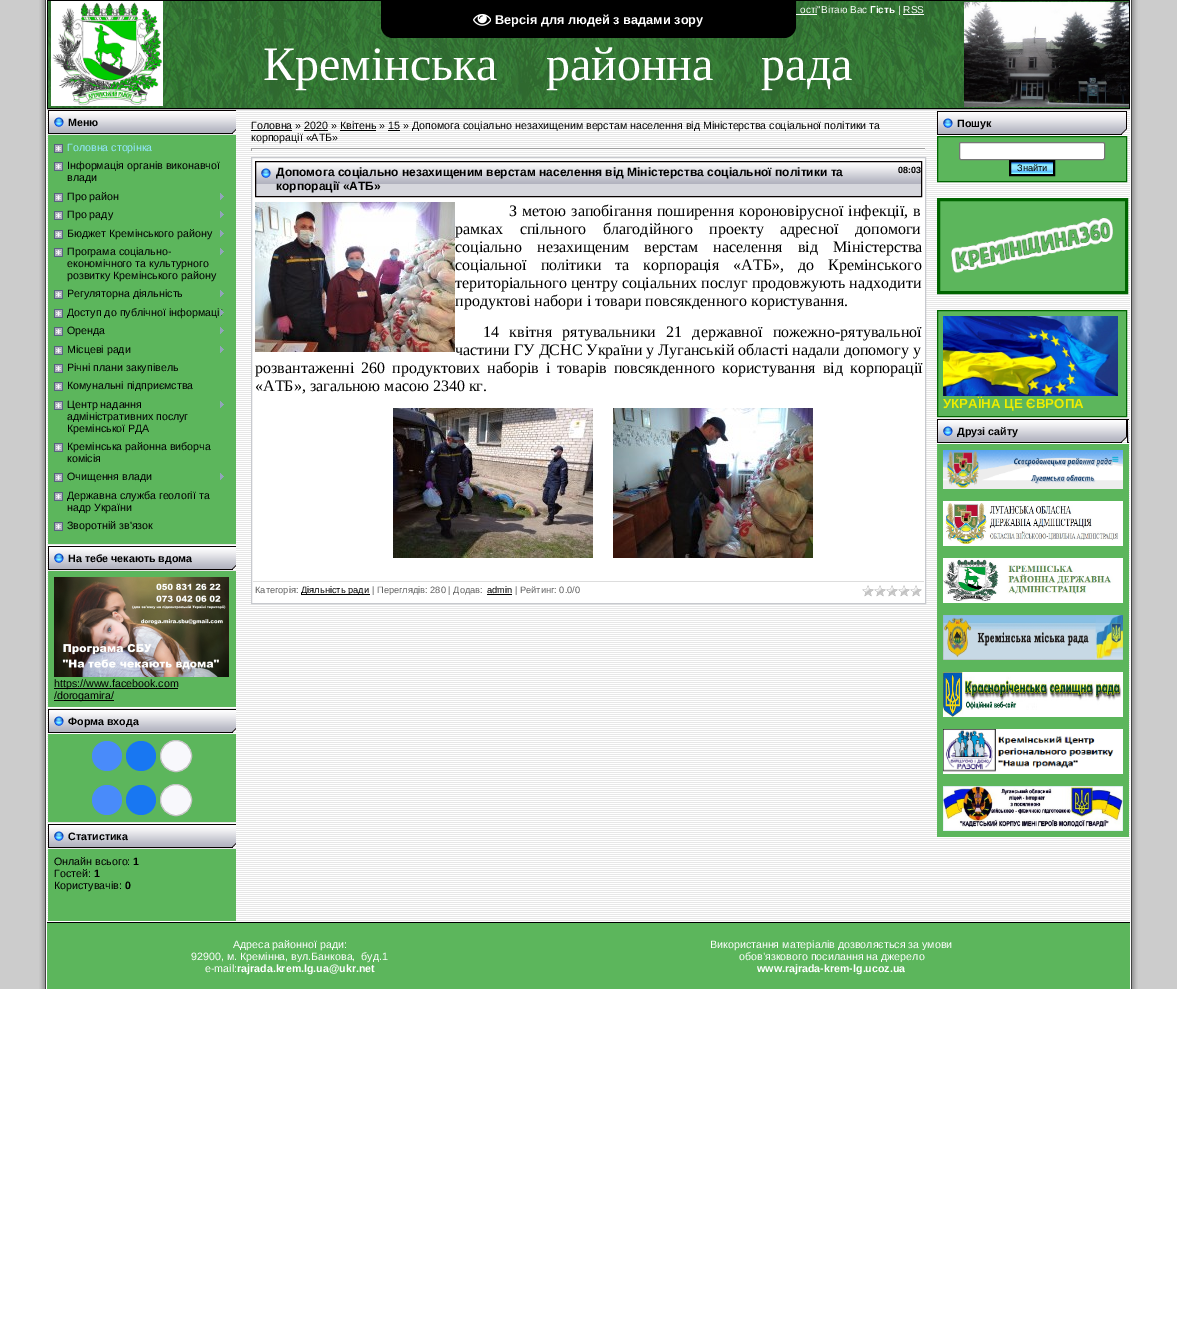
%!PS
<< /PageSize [1177 1334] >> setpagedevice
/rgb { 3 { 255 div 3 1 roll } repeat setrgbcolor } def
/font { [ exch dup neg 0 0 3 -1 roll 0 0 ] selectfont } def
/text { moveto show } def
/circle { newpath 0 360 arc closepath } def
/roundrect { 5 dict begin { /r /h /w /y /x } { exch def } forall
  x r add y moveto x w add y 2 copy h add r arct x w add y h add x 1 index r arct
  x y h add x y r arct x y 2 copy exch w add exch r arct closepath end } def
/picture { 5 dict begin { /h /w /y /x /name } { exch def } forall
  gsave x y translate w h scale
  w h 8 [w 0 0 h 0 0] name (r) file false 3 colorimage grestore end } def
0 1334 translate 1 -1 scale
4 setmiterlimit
255 255 255 rgb
0 0 1177 1334 rectfill
204 204 204 rgb
0 0 39 989 rectfill
(img_01.rgb) 39 0 8 989 picture
0 0 0 rgb
47.5 0.5 1082 108 rectstroke
(img_02.rgb) 48 1 143 107 picture
(img_03.rgb) 51 1 112 105 picture
(img_04.rgb) 191 1 733 18 picture
255 255 255 rgb
794 14 23 1 rectfill
903 14 21 1 rectfill
(img_05.rgb) 924 1 205 107 picture
(img_06.rgb) 964 2 165 105 picture
(img_07.rgb) 191 19 733 89 picture
(img_08.rgb) 47 110 1083 811 picture
(img_09.rgb) 48 110 188 24 picture
92 182 92 rgb
48 135 188 409 rectfill
(img_10.rgb) 54 144 9 9 picture
(img_10.rgb) 54 162 9 9 picture
(img_10.rgb) 54 193 9 9 picture
(img_11.rgb) 220 193 4 7 picture
(img_10.rgb) 54 211 9 9 picture
(img_11.rgb) 220 211 4 7 picture
(img_10.rgb) 54 230 9 9 picture
(img_11.rgb) 220 230 4 7 picture
(img_10.rgb) 54 248 9 9 picture
(img_11.rgb) 220 248 4 7 picture
(img_10.rgb) 54 290 9 9 picture
(img_11.rgb) 220 290 4 7 picture
(img_10.rgb) 54 309 9 9 picture
(img_12.rgb) 220 309 4 7 picture
(img_10.rgb) 54 327 9 9 picture
(img_11.rgb) 220 327 4 7 picture
(img_10.rgb) 54 346 9 9 picture
(img_11.rgb) 220 346 4 7 picture
(img_10.rgb) 54 364 9 9 picture
(img_10.rgb) 54 382 9 9 picture
(img_10.rgb) 54 401 9 9 picture
(img_11.rgb) 220 401 4 7 picture
(img_10.rgb) 54 443 9 9 picture
(img_10.rgb) 54 473 9 9 picture
(img_11.rgb) 220 473 4 7 picture
(img_10.rgb) 54 492 9 9 picture
(img_10.rgb) 54 522 9 9 picture
(img_09.rgb) 48 546 188 24 picture
48 571 188 136 rectfill
(img_13.rgb) 54 577 175 100 picture
0 0 0 rgb
54 688 124 1 rectfill
54 700 60 1 rectfill
(img_14.rgb) 48 709 188 24 picture
92 182 92 rgb
48 734 188 88 rectfill
73 139 250 rgb
107 756 15 circle fill
24 119 242 rgb
141 756 15 circle fill
248 248 252 rgb
176 756 15.5 circle gsave fill grestore
196 196 196 rgb
stroke
73 139 250 rgb
107 800 15 circle fill
24 119 242 rgb
141 800 15 circle fill
248 248 252 rgb
176 800 15.5 circle gsave fill grestore
196 196 196 rgb
stroke
(img_09.rgb) 48 824 188 24 picture
92 182 92 rgb
48 849 188 72 rectfill
0 0 0 rgb
251 130 41 1 rectfill
304 130 24 1 rectfill
340 130 36 1 rectfill
388 130 12 1 rectfill
159 159 159 rgb
251 148 675 1 rectfill
238 238 238 rgb
925 148 1 3 rectfill
251 150 675 1 rectfill
159 159 159 rgb
251 148 1 3 rectfill
255 255 255 rgb
251.5 157.5 moveto 674 0 rlineto 0 446 rlineto -674 0 rlineto closepath gsave fill grestore
199 201 206 rgb
stroke
214 215 221 rgb
256 184 665 12 rectfill
(img_15.rgb) 256 162 665 22 picture
6 0 0 rgb
255.5 161.5 666 35 rectstroke
(img_16.rgb) 255 202 200 150 picture
(img_17.rgb) 393 408 200 150 picture
(img_18.rgb) 613 408 200 150 picture
221 221 221 rgb
253 581 671 1 rectfill
0 0 0 rgb
301 594 69 1 rectfill
487 594 25 1 rectfill
(img_19.rgb) 862 585 60 12 picture
(img_20.rgb) 937 111 190 24 picture
92 182 92 rgb
937.5 136.5 moveto 189 0 rlineto 0 45 rlineto -189 0 rlineto closepath gsave fill grestore
0 100 0 rgb
stroke
255 255 255 rgb
959.5 142.5 145 17 1.5 roundrect gsave fill grestore
118 118 118 rgb
stroke
(img_21.rgb) 1011 162 42 12 picture
0 0 0 rgb
2 setlinewidth
1010 161 44 14 rectstroke
92 182 92 rgb
938.5 199.5 moveto 188 0 rlineto 0 93 rlineto -188 0 rlineto closepath gsave fill grestore
0 100 0 rgb
3 setlinewidth
stroke
(img_22.rgb) 951 218 162 55 picture
92 182 92 rgb
937.5 310.5 moveto 189 0 rlineto 0 106 rlineto -189 0 rlineto closepath gsave fill grestore
0 100 0 rgb
1 setlinewidth
stroke
(img_23.rgb) 943 316 175 80 picture
(img_24.rgb) 937 419 192 24 picture
92 182 92 rgb
937 444 192 393 rectfill
(img_25.rgb) 943 450 180 39 picture
(img_26.rgb) 943 501 180 45 picture
(img_27.rgb) 943 558 180 45 picture
(img_28.rgb) 943 615 180 45 picture
(img_29.rgb) 943 672 180 45 picture
(img_30.rgb) 943 729 180 45 picture
(img_31.rgb) 943 786 180 45 picture
0 0 0 rgb
47 922 1083 1 rectfill
92 182 92 rgb
47 923 1083 66 rectfill
204 204 204 rgb
1138 0 39 989 rectfill
(img_32.rgb) 1130 0 8 989 picture
0 0 0 rgb
381 0 moveto 415 0 rlineto 0 26 rlineto 0 6.5 -5.5 12 -12 12 rcurveto -391 0 rlineto -6.5 0 -12 -5.5 -12 -12 rcurveto closepath fill
(img_33.rgb) 473 13 18 13 picture
/LiberationSans-Regular 10 font
255 255 255 rgb
(ості"Вітаю Вас) 800 13 text
/LiberationSans-Bold 10 font
(Гість) 870 13 text
/LiberationSans-Regular 10 font
(| RSS) 898 13 text
/LiberationSerif-Regular 48 font
(Кремінська    районна    рада) 263 80 text
/LiberationSans-Bold 10.67 font
0 0 0 rgb
(Меню) 68 126 text
/LiberationSans-Regular 10.67 font
148 231 255 rgb
(Головна сторінка) 67 151 text
0 0 0 rgb
(Інформація органів виконавчої) 67 169 text
(влади) 67 181 text
(Про район) 67 200 text
(Про раду) 67 218 text
(Бюджет Кремінського району) 67 237 text
(Програма соціально-) 67 255 text
(економічного та культурного) 67 267 text
(розвитку Кремінського району) 67 279 text
(Регуляторна діяльність) 67 297 text
(Доступ до публічної інформаці) 67 316 text
(Оренда) 67 334 text
(Місцеві ради) 67 353 text
(Річні плани закупівель) 67 371 text
(Комунальні підприємства) 67 389 text
(Центр надання) 67 408 text
(адміністративних послуг) 67 420 text
(Кремінської РДА) 67 432 text
(Кремінська районна виборча) 67 450 text
(комісія) 67 462 text
(Очищення влади) 67 480 text
(Державна служба геології та) 67 499 text
(надр України) 67 511 text
(Зворотній зв'язок) 67 529 text
/LiberationSans-Bold 10.67 font
(На тебе чекають вдома) 68 562 text
/LiberationSans-Regular 10.67 font
(https://www.facebook.com) 54 687 text
(/dorogamira/) 54 699 text
/LiberationSans-Bold 10.67 font
(Форма входа) 68 725 text
(Статистика) 68 840 text
/LiberationSans-Regular 10.67 font
(Онлайн всього:) 54 865 text
/LiberationSans-Bold 10.67 font
(1) 133 865 text
/LiberationSans-Regular 10.67 font
(Гостей:) 54 877 text
/LiberationSans-Bold 10.67 font
(1) 94 877 text
/LiberationSans-Regular 10.67 font
(Користувачів:) 54 889 text
/LiberationSans-Bold 10.67 font
(0) 125 889 text
/LiberationSans-Regular 10.67 font
(Головна » 2020 » Квітень » 15 » Допомога соціально незахищеним верстам населення від Міністерства соціальної політики та) 251 129 text
(корпорації «АТБ») 251 141 text
/LiberationSans-Bold 12 font
(Допомога соціально незахищеним верстам населення від Міністерства соціальної політики та) 276 176 text
/LiberationSans-Bold 9 font
(08:03) 898 173 text
/LiberationSans-Bold 12 font
(корпорації «АТБ») 276 190 text
/LiberationSerif-Regular 16 font
509 216 moveto 1 0 32 (З метою запобігання поширення короновірусної інфекції, в) widthshow
455 234 moveto 12.5 0 32 (рамках спільного благодійного проекту адресної допомоги) widthshow
455 252 moveto 11 0 32 (соціально незахищеним верстам населення від Міністерства) widthshow
455 270 moveto 10 0 32 (соціальної політики та корпорація «АТБ», до Кремінського) widthshow
(територіального центру соціальних послуг продовжують надходити) 455 288 text
(продуктові набори і товари повсякденного користування.) 455 306 text
483 337 moveto 6.25 0 32 (14 квітня рятувальники 21 державної пожежно-рятувальної) widthshow
(частини ГУ ДСНС України у Луганській області надали допомогу у) 455 355 text
255 373 moveto 3 0 32 (розвантаженні 260 продуктових наборів і товарів повсякденного користування від корпорації) widthshow
(«АТБ», загальною масою 2340 кг.) 255 391 text
/LiberationSans-Regular 9.25 font
99 99 99 rgb
(Категорія:) 255 593 text
0 0 0 rgb
(Діяльність ради) 301 593 text
99 99 99 rgb
(| Переглядів: 280 | Додав:) 372 593 text
0 0 0 rgb
(admin) 487 593 text
99 99 99 rgb
(| Рейтинг: 0.0/0) 515 593 text
/LiberationSans-Bold 10.67 font
0 0 0 rgb
(Пошук) 957 127 text
/LiberationSans-Regular 9.25 font
(Знайти) 1017 171 text
/LiberationSans-Bold 13.25 font
237 237 0 rgb
(УКРАЇНА ЦЕ ЄВРОПА) 943 408 text
/LiberationSans-Bold 10.67 font
0 0 0 rgb
(Друзі сайту) 957 435 text
/LiberationSans-Regular 10.67 font
255 255 255 rgb
(Адреса районної ради:) 233 948 text
(92900, м. Кремінна, вул.Банкова,  буд.1) 191 960 text
(e-mail:) 205 972 text
/LiberationSans-Bold 10.67 font
(rajrada.krem.lg.ua@ukr.net) 237 972 text
92 182 92 rgb
247 962 52 1 rectfill
/LiberationSans-Regular 10.67 font
255 255 255 rgb
(Використання матеріалів дозволяється за умови) 710 948 text
(обов’язкового посилання на джерело) 739 960 text
92 182 92 rgb
807 950 117 1 rectfill
/LiberationSans-Bold 10.67 font
255 255 255 rgb
(www.rajrada-krem-lg.ucoz.ua) 757 972 text
92 182 92 rgb
880 962 22 1 rectfill
/LiberationSans-Bold 12.75 font
255 255 255 rgb
(Версія для людей з вадами зору) 495 24 text
showpage
